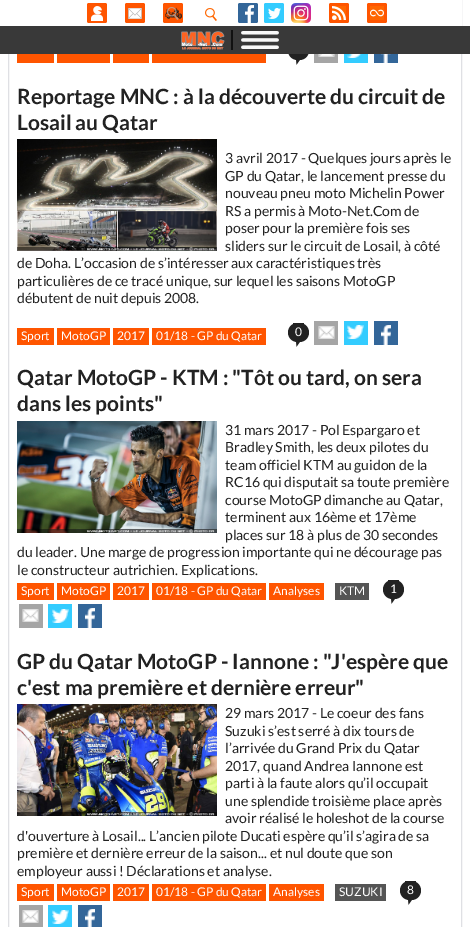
%!PS
<< /PageSize [470 927] >> setpagedevice
/rgb { 3 { 255 div 3 1 roll } repeat setrgbcolor } def
/font { [ exch dup neg 0 0 3 -1 roll 0 0 ] selectfont } def
/text { moveto show } def
/roundrect { 5 dict begin { /r /h /w /y /x } { exch def } forall
  x r add y moveto x w add y 2 copy h add r arct x w add y h add x 1 index r arct
  x y h add x y r arct x y 2 copy exch w add exch r arct closepath end } def
/picture { 5 dict begin { /h /w /y /x /name } { exch def } forall
  gsave x y translate w h scale
  w h 8 [w 0 0 h 0 0] name (r) file false 3 colorimage grestore end } def
0 927 translate 1 -1 scale
4 setmiterlimit
255 255 255 rgb
0 0 470 927 rectfill
223 224 228 rgb
460.5 -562.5 moveto 1 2.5 rlineto 0 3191 rlineto -1 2.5 rlineto stroke
9.5 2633.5 moveto -1 -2.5 rlineto 0 -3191 rlineto 1 -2.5 rlineto stroke
255 255 255 rgb
8 0 454 26 rectfill
255 85 0 rgb
87 3 20 20 2 roundrect fill
(img_01.rgb) 91 6 12 15 picture
125 3 20 20 2 roundrect fill
(img_02.rgb) 128 8 14 11 picture
163 3 20 20 2 roundrect fill
(img_03.rgb) 165 7 17 13 picture
(img_04.rgb) 205 8 12 13 picture
51 102 153 rgb
238 3 20 20 2 roundrect fill
(img_05.rgb) 245 5 9 18 picture
51 204 255 rgb
264 3 20 20 2 roundrect fill
(img_06.rgb) 268 8 13 11 picture
(img_07.rgb) 291 3 20 20 picture
255 85 0 rgb
329 3 20 20 2 roundrect fill
(img_08.rgb) 332 6 14 14 picture
367 3 20 20 2 roundrect fill
(img_09.rgb) 370 6 14 14 picture
34 34 34 rgb
288 41 21 19 9.5 roundrect fill
57 57 57 rgb
0 26 470 28 rectfill
17 17 17 rgb
231 30 2 20 rectfill
(img_10.rgb) 181 31 44 19 picture
(img_11.rgb) 241 31 38 18 picture
255 85 0 rgb
17 54 37 9 rectfill
57 54 53 9 rectfill
113 54 36 9 rectfill
152 54 114 9 rectfill
(img_12.rgb) 296 60 4 5 picture
165 165 165 rgb
314 54 24 9 rectfill
(img_13.rgb) 318 54 17 3 picture
51 204 255 rgb
344 54 24 9 rectfill
(img_14.rgb) 347 54 15 4 picture
51 102 153 rgb
374 54 24 9 rectfill
(img_15.rgb) 381 54 10 9 picture
(img_16.rgb) 17 139 200 112 picture
255 85 0 rgb
17 328 37 17 rectfill
57 328 53 17 rectfill
113 328 36 17 rectfill
152 328 114 17 rectfill
(img_12.rgb) 296 342 4 5 picture
34 34 34 rgb
288 323 21 19 9.5 roundrect fill
293 323 11 1 rectfill
165 165 165 rgb
314 321 24 24 rectfill
(img_17.rgb) 318 326 17 13 picture
51 204 255 rgb
344 321 24 24 rectfill
(img_18.rgb) 347 325 17 14 picture
51 102 153 rgb
374 321 24 24 rectfill
(img_19.rgb) 381 325 10 20 picture
(img_20.rgb) 17 421 200 112 picture
255 85 0 rgb
17 583 37 17 rectfill
57 583 53 17 rectfill
113 583 36 17 rectfill
152 583 114 17 rectfill
269 583 55 17 rectfill
85 85 85 rgb
335 583 34 17 rectfill
(img_12.rgb) 391 599 4 5 picture
34 34 34 rgb
383 580 21 19 9.5 roundrect fill
388 580 11 1 rectfill
165 165 165 rgb
19 604 24 24 rectfill
(img_17.rgb) 22 609 17 13 picture
51 204 255 rgb
48 604 24 24 rectfill
(img_18.rgb) 52 609 17 14 picture
51 102 153 rgb
78 604 24 24 rectfill
(img_21.rgb) 85 608 10 20 picture
(img_22.rgb) 17 704 200 112 picture
255 85 0 rgb
17 884 37 17 rectfill
57 884 53 17 rectfill
113 884 36 17 rectfill
152 884 114 17 rectfill
269 884 55 17 rectfill
85 85 85 rgb
335 884 51 17 rectfill
(img_12.rgb) 408 900 4 5 picture
34 34 34 rgb
400 881 21 19 9.5 roundrect fill
405 881 11 1 rectfill
165 165 165 rgb
19 905 24 22 rectfill
(img_17.rgb) 22 910 17 13 picture
51 204 255 rgb
48 905 24 22 rectfill
(img_18.rgb) 52 910 17 14 picture
51 102 153 rgb
78 905 24 22 rectfill
(img_23.rgb) 85 909 10 18 picture
/Lato-Bold 21 font
34 34 34 rgb
(Reportage MNC : à la découverte du circuit de) 17 104 text
(Losail au Qatar) 17 130 text
/Lato-Regular 14 font
(3 avril 2017 - Quelques jours après le) 225 163 text
(GP du Qatar, le lancement presse du) 225 181 text
(nouveau pneu moto Michelin Power) 225 198 text
(RS a permis à Moto-Net.Com de) 225 216 text
(poser pour la première fois ses) 225 233 text
(sliders sur le circuit de Losail, à côté) 225 251 text
(de Doha. L’occasion de s’intéresser aux caractéristiques très) 17 268 text
(particulières de ce tracé unique, sur lequel les saisons MotoGP) 17 286 text
(débutent de nuit depuis 2008.) 17 303 text
/Lato-Regular 12 font
255 255 255 rgb
(Sport) 21 340 text
(MotoGP) 61 340 text
(2017) 117 340 text
(01/18 - GP du Qatar) 156 340 text
(0) 295 336 text
/Lato-Bold 21 font
34 34 34 rgb
(Qatar MotoGP - KTM : "Tôt ou tard, on sera) 17 385 text
(dans les points") 17 411 text
/Lato-Regular 14 font
(31 mars 2017 - Pol Espargaro et) 225 435 text
(Bradley Smith, les deux pilotes du) 225 452 text
(team officiel KTM au guidon de la) 225 470 text
(RC16 qui disputait sa toute première) 225 487 text
(course MotoGP dimanche au Qatar,) 225 505 text
(terminent aux 16ème et 17ème) 225 522 text
(places sur 18 à plus de 30 secondes) 225 540 text
(du leader. Une marge de progression importante qui ne décourage pas) 17 557 text
(le constructeur autrichien. Explications.) 17 575 text
/Lato-Regular 12 font
255 255 255 rgb
(Sport) 21 595 text
(MotoGP) 61 595 text
(2017) 117 595 text
(01/18 - GP du Qatar) 156 595 text
(Analyses) 273 595 text
(KTM) 339 595 text
(1) 390 593 text
/Lato-Bold 21 font
34 34 34 rgb
(GP du Qatar MotoGP - Iannone : "J'espère que) 17 669 text
(c'est ma première et dernière erreur") 17 695 text
/Lato-Regular 14 font
(29 mars 2017 - Le coeur des fans) 225 718 text
(Suzuki s’est serré à dix tours de) 225 736 text
(l’arrivée du Grand Prix du Qatar) 225 753 text
(2017, quand Andrea Iannone est) 225 771 text
(parti à la faute alors qu’il occupait) 225 788 text
(une splendide troisième place après) 225 806 text
(avoir réalisé le holeshot de la course) 225 823 text
(d'ouverture à Losail... L’ancien pilote Ducati espère qu’il s’agira de sa) 17 841 text
(première et dernière erreur de la saison... et nul doute que son) 17 858 text
(employeur aussi ! Déclarations et analyse.) 17 876 text
/Lato-Regular 12 font
255 255 255 rgb
(Sport) 21 896 text
(MotoGP) 61 896 text
(2017) 117 896 text
(01/18 - GP du Qatar) 156 896 text
(Analyses) 273 896 text
(SUZUKI) 339 896 text
(8) 407 894 text
showpage
